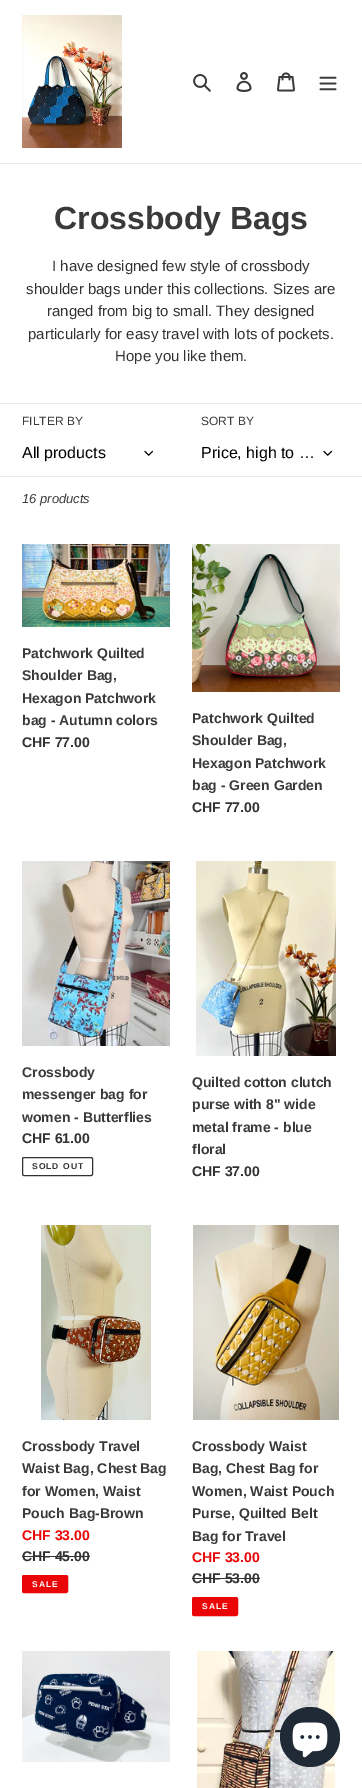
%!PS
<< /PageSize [362 1788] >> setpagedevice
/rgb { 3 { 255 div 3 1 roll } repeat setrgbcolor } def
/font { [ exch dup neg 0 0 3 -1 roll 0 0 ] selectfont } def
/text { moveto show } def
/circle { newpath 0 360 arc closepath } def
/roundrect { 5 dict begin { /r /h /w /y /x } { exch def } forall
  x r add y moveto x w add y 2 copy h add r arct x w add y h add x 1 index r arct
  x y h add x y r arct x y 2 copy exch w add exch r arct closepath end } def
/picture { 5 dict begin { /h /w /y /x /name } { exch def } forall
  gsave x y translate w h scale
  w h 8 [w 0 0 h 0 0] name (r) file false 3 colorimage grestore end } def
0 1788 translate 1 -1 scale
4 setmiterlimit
255 255 255 rgb
0 0 362 1788 rectfill
235 235 235 rgb
0 163 362 1 rectfill
(img_01.rgb) 22 15 100 133 picture
(img_02.rgb) 193 74 18 18 picture
(img_03.rgb) 236 72 16 20 picture
(img_04.rgb) 277 72 18 20 picture
(img_05.rgb) 319 76 18 15 picture
0 403 362 1 rectfill
(img_06.rgb) 144 450 9 6 picture
(img_06.rgb) 323 450 9 6 picture
0 476 362 1 rectfill
(img_07.rgb) 22 544 148 83 picture
(img_08.rgb) 192 544 148 148 picture
(img_09.rgb) 22 861 148 185 picture
51 50 50 rgb
22.5 1157.5 70 18 1.5 roundrect stroke
(img_10.rgb) 196 861 140 195 picture
(img_11.rgb) 41 1225 110 195 picture
22 1556 68 1 rectfill
234 6 6 rgb
22.5 1575.5 45 17 1.5 roundrect gsave fill grestore
stroke
(img_12.rgb) 193 1225 146 195 picture
51 50 50 rgb
192 1578 68 1 rectfill
234 6 6 rgb
192.5 1597.5 45 18 1.5 roundrect gsave fill grestore
stroke
(img_13.rgb) 22 1651 148 111 picture
(img_14.rgb) 197 1651 138 137 picture
32 42 54 rgb
310 1737 30 circle fill
(img_15.rgb) 292 1722 36 36 picture
/LiberationSans-Bold 32 font
58 58 58 rgb
(Crossbody Bags) 54 229 text
/LiberationSans-Regular 15 font
51 50 50 rgb
(I have designed few style of crossbody) 52 271 text
(shoulder bags under this collections. Sizes are) 26 294 text
(ranged from big to small. They designed) 47 316 text
(particularly for easy travel with lots of pockets.) 28 339 text
(Hope you like them.) 115 361 text
/LiberationSans-Regular 12 font
58 58 58 rgb
(FILTER BY) 22 425 text
/LiberationSans-Regular 16 font
0 0 0 rgb
(All products) 22 458 text
/LiberationSans-Regular 12 font
58 58 58 rgb
(SORT BY) 201 425 text
/LiberationSans-Regular 16 font
0 0 0 rgb
(Price, high to …) 201 458 text
/LiberationSans-Italic 13 font
58 58 58 rgb
(16 products) 22 503 text
/LiberationSans-Bold 14 font
(Patchwork Quilted) 22 658 text
(Shoulder Bag,) 22 680 text
(Hexagon Patchwork) 22 703 text
(bag - Autumn colors) 22 725 text
51 50 50 rgb
(CHF 77.00) 22 747 text
58 58 58 rgb
(Patchwork Quilted) 192 723 text
(Shoulder Bag,) 192 745 text
(Hexagon Patchwork) 192 768 text
(bag - Green Garden) 192 790 text
51 50 50 rgb
(CHF 77.00) 192 812 text
58 58 58 rgb
(Crossbody) 22 1077 text
(messenger bag for) 22 1099 text
(women - Butterflies) 22 1122 text
51 50 50 rgb
(CHF 61.00) 22 1143 text
/LiberationSans-Bold 8.5 font
32 1169 moveto 1 0 (SOLD OUT) ashow
/LiberationSans-Bold 14 font
58 58 58 rgb
(Quilted cotton clutch) 192 1087 text
(purse with 8" wide) 192 1109 text
(metal frame - blue) 192 1132 text
(floral) 192 1154 text
51 50 50 rgb
(CHF 37.00) 192 1176 text
58 58 58 rgb
(Crossbody Travel) 22 1451 text
(Waist Bag, Chest Bag) 22 1473 text
(for Women, Waist) 22 1496 text
(Pouch Bag-Brown) 22 1518 text
234 6 6 rgb
(CHF 33.00) 22 1540 text
51 50 50 rgb
(CHF 45.00) 22 1561 text
/LiberationSans-Bold 8.5 font
255 255 255 rgb
32 1587 moveto 1 0 (SALE) ashow
/LiberationSans-Bold 14 font
58 58 58 rgb
(Crossbody Waist) 192 1451 text
(Bag, Chest Bag for) 192 1473 text
(Women, Waist Pouch) 192 1496 text
(Purse, Quilted Belt) 192 1518 text
(Bag for Travel) 192 1541 text
234 6 6 rgb
(CHF 33.00) 192 1562 text
51 50 50 rgb
(CHF 53.00) 192 1583 text
/LiberationSans-Bold 8.5 font
255 255 255 rgb
202 1609 moveto 1 0 (SALE) ashow
showpage
